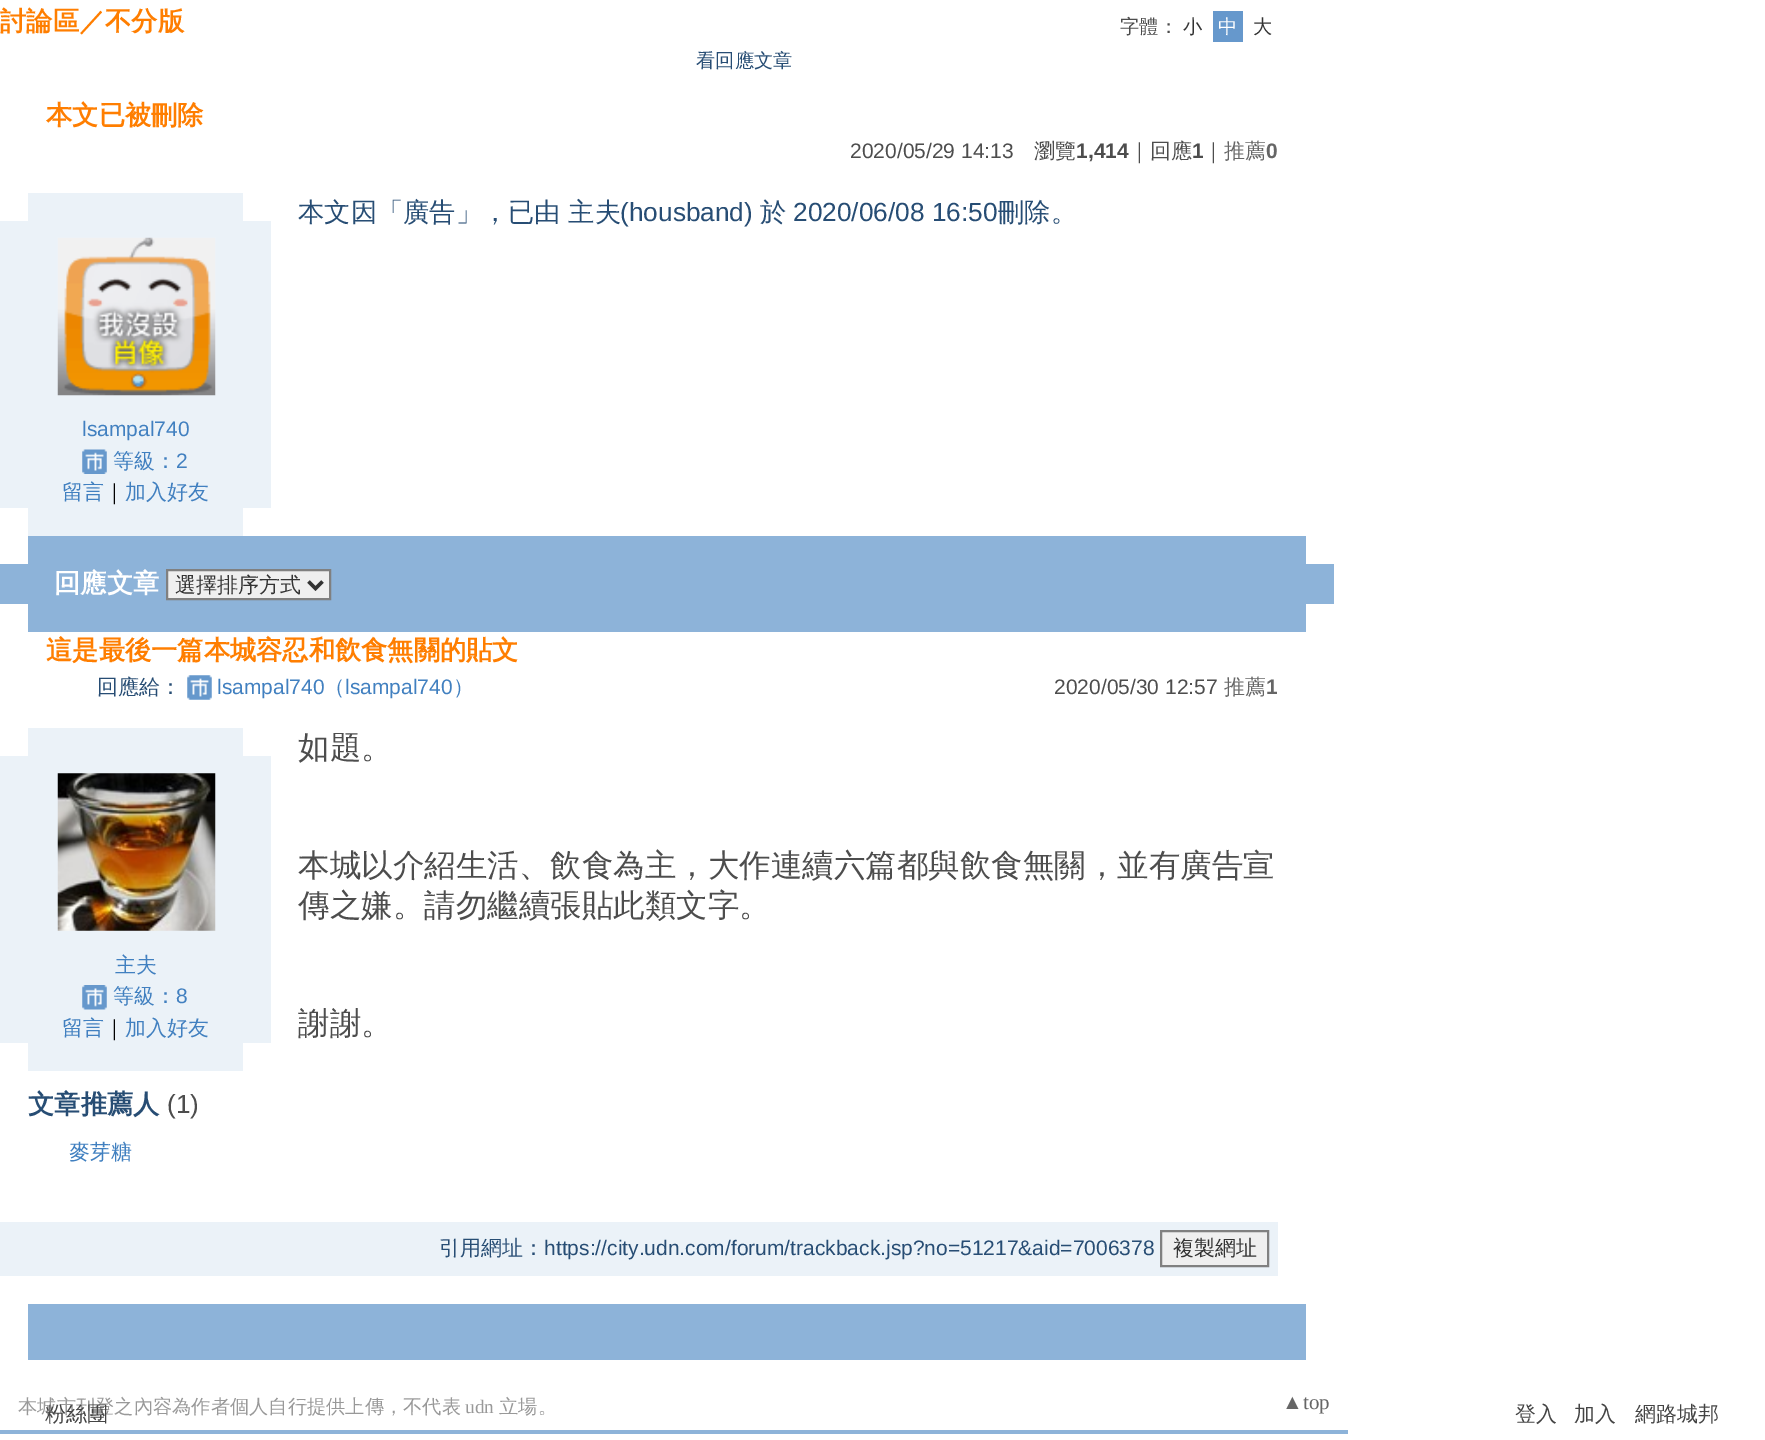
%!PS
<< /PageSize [1765 1440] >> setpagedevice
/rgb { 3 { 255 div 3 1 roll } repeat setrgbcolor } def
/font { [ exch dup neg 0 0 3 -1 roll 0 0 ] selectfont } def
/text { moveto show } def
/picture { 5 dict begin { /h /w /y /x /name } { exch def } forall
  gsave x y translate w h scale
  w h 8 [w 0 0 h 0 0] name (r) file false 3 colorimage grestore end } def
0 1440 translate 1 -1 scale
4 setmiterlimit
255 255 255 rgb
0 0 1765 1440 rectfill
102 152 204 rgb
1213 11 30 31 rectfill
235 242 248 rgb
28 193 215 28 rectfill
0 221 271 287 rectfill
(img_01.rgb) 57 237 159 159 picture
(img_02.rgb) 82 449 25 25 picture
28 508 215 28 rectfill
141 179 217 rgb
28 536 1278 28 rectfill
0 564 1334 40 rectfill
239 239 239 rgb
167 570 moveto 163 0 rlineto 0 29 rlineto -163 0 rlineto closepath gsave fill grestore
128 128 128 rgb
2 setlinewidth
stroke
51 51 51 rgb
3.5 setlinewidth
308.5 581.5 moveto 7 7 rlineto 7 -7 rlineto stroke
141 179 217 rgb
28 604 1278 28 rectfill
(img_03.rgb) 187 675 25 25 picture
235 242 248 rgb
28 728 215 28 rectfill
0 756 271 287 rectfill
(img_04.rgb) 57 773 159 158 picture
(img_05.rgb) 82 985 25 25 picture
28 1043 215 28 rectfill
0 1222 1278 54 rectfill
239 239 239 rgb
1161 1231 moveto 107 0 rlineto 0 35 rlineto -107 0 rlineto closepath gsave fill grestore
128 128 128 rgb
2 setlinewidth
stroke
141 179 217 rgb
28 1304 1278 56 rectfill
0 1430 1348 4 rectfill
/WenQuanYiZenHei-Bold 26.25 font
255 126 0 rgb
(討論區／不分版) 0 30 text
/WenQuanYiZenHei-Medium 19.25 font
77 77 77 rgb
(字體：) 1120 33 text
51 51 51 rgb
(小) 1183 33 text
255 255 255 rgb
(中) 1218 33 text
51 51 51 rgb
(大) 1253 33 text
39 77 116 rgb
(看回應文章) 696 67 text
/WenQuanYiZenHei-Bold 26.25 font
255 126 0 rgb
(本文已被刪除) 46 124 text
/LiberationSans-Regular 21 font
77 77 77 rgb
(2020/05/29 14:13) 850 158 text
/WenQuanYiZenHei-Medium 21 font
(瀏覽) 1034 158 text
/LiberationSans-Bold 21 font
(1,414) 1076 158 text
/WenQuanYiZenHei-Medium 21 font
(｜回應) 1129 158 text
/LiberationSans-Bold 21 font
(1) 1192 158 text
/WenQuanYiZenHei-Medium 21 font
(｜) 1203 158 text
102 102 102 rgb
(推薦) 1224 158 text
/LiberationSans-Bold 21 font
(0) 1266 158 text
/WenQuanYiZenHei-Medium 26.25 font
39 77 116 rgb
(本文因「廣告」，已由 主夫) 298 221 text
/LiberationSans-Regular 26.25 font
(\(housband\)) 620 221 text
/WenQuanYiZenHei-Medium 26.25 font
(於) 760 221 text
/LiberationSans-Regular 26.25 font
(2020/06/08 16:50) 793 221 text
/WenQuanYiZenHei-Medium 26.25 font
(刪除。) 998 221 text
/LiberationSans-Regular 21 font
65 128 192 rgb
(lsampal740) 82 436 text
/WenQuanYiZenHei-Medium 21 font
(等級：) 113 468 text
/LiberationSans-Regular 21 font
(2) 176 468 text
/WenQuanYiZenHei-Medium 21 font
(留言) 62 499 text
0 0 0 rgb
(｜) 104 499 text
65 128 192 rgb
(加入好友) 125 499 text
/WenQuanYiZenHei-Bold 26.25 font
255 255 255 rgb
(回應文章) 54 592 text
/WenQuanYiZenHei-Medium 21 font
51 51 51 rgb
(選擇排序方式) 175 592 text
/WenQuanYiZenHei-Bold 26.25 font
255 126 0 rgb
(這是最後一篇本城容忍和飲食無關的貼文) 46 659 text
/WenQuanYiZenHei-Medium 21 font
39 77 116 rgb
(回應給：) 97 694 text
/LiberationSans-Regular 21 font
65 128 192 rgb
(lsampal740) 217 694 text
/WenQuanYiZenHei-Medium 21 font
(（) 324 694 text
/LiberationSans-Regular 21 font
(lsampal740) 345 694 text
/WenQuanYiZenHei-Medium 21 font
(）) 453 694 text
/LiberationSans-Regular 21 font
77 77 77 rgb
(2020/05/30 12:57) 1054 694 text
/WenQuanYiZenHei-Medium 21 font
102 102 102 rgb
(推薦) 1224 694 text
/LiberationSans-Bold 21 font
(1) 1266 694 text
/WenQuanYiZenHei-Medium 21 font
65 128 192 rgb
(主夫) 115 972 text
(等級：) 113 1003 text
/LiberationSans-Regular 21 font
(8) 176 1003 text
/WenQuanYiZenHei-Medium 21 font
(留言) 62 1035 text
0 0 0 rgb
(｜) 104 1035 text
65 128 192 rgb
(加入好友) 125 1035 text
/WenQuanYiZenHei-Bold 26.25 font
39 77 116 rgb
(文章推薦人) 28 1113 text
/LiberationSans-Regular 26.25 font
77 77 77 rgb
(\(1\)) 167 1113 text
/WenQuanYiZenHei-Medium 21 font
65 128 192 rgb
(麥芽糖) 69 1159 text
/WenQuanYiZenHei-Medium 31.5 font
77 77 77 rgb
(如題。) 298 758 text
(本城以介紹生活、飲食為主，大作連續六篇都與飲食無關，並有廣告宣) 298 876 text
(傳之嫌。請勿繼續張貼此類文字。) 298 916 text
(謝謝。) 298 1034 text
/WenQuanYiZenHei-Medium 21 font
39 77 116 rgb
(引用網址：) 439 1255 text
/LiberationSans-Regular 21 font
(https://city.udn.com/forum/trackback.jsp?no=51217&aid=7006378) 544 1255 text
/WenQuanYiZenHei-Medium 21 font
51 51 51 rgb
(複製網址) 1173 1255 text
/WenQuanYiZenHei-Medium 19.25 font
153 153 153 rgb
(本城市刊登之內容為作者個人自行提供上傳，不代表) 18 1413 text
/LiberationSerif-Regular 19.25 font
(udn) 465 1413 text
/WenQuanYiZenHei-Medium 19.25 font
(立場。) 499 1413 text
/LiberationSerif-Regular 21 font
102 102 102 rgb
(▲top) 1282 1409 text
/WenQuanYiZenHei-Medium 21 font
68 68 68 rgb
(粉絲團) 45 1421 text
(登入) 1515 1421 text
(加入) 1574 1421 text
(網路城邦) 1635 1421 text
showpage
